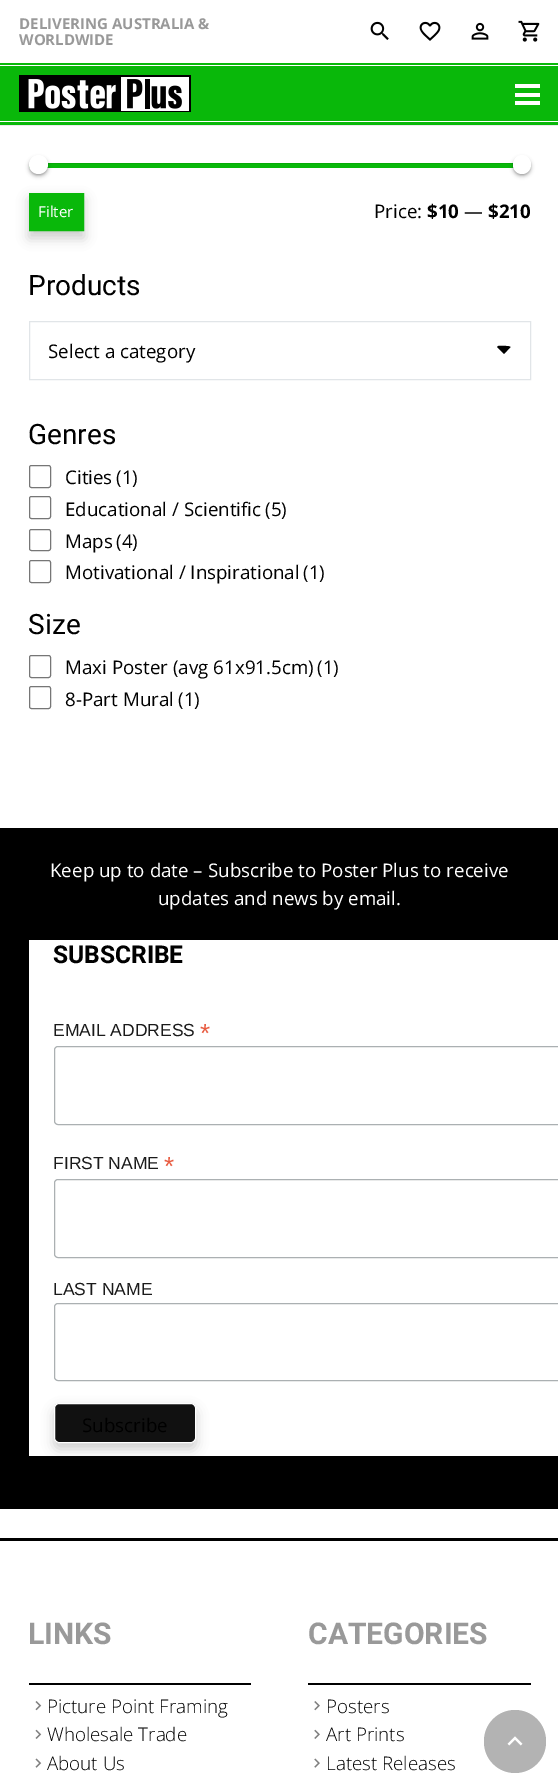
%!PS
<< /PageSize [558 1784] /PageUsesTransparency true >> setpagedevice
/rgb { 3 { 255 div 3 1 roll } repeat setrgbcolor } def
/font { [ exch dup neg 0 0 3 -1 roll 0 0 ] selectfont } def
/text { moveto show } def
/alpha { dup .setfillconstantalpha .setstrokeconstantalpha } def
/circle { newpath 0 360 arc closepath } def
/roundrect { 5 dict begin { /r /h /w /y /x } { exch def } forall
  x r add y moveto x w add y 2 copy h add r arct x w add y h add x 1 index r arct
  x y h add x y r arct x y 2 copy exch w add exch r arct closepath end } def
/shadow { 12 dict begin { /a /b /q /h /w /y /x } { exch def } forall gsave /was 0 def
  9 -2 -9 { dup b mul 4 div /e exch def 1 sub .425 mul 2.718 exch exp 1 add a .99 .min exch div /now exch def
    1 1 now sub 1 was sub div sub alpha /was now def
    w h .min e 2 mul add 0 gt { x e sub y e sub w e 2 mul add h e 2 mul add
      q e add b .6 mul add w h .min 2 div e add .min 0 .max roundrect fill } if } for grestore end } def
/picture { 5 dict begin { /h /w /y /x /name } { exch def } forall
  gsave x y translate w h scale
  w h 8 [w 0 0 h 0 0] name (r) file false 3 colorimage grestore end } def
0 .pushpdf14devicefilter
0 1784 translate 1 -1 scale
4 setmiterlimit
255 255 255 rgb
0 0 558 1784 rectfill
(img_01.rgb) 370 21 19 19 picture
(img_02.rgb) 419 21 22 20 picture
(img_03.rgb) 471 22 18 18 picture
(img_04.rgb) 518 20 22 22 picture
0.08 alpha
0 0 0 rgb
0 125 moveto 0 1 rlineto 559 0 rlineto 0 -62 rlineto 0 61 rlineto closepath fill
1 alpha
9 184 10 rgb
0 63 558 62 rectfill
255 255 255 rgb
0 65 558 1 rectfill
(img_05.rgb) 19 75 172 37 picture
515 93 25 4 rectfill
515 84 25 4 rectfill
515 101 25 4 rectfill
0 121 558 1 rectfill
9 184 10 rgb
29 163 502 5 2.5 roundrect fill
0.08 alpha
0 0 0 rgb
31 164 moveto 498 0 rlineto 2 1 rlineto 0 -1 -1 -2 -3 -2 rcurveto -496 0 rlineto -2 0 -3 1 -3 2 rcurveto 0 0 1 -1 2 -1 rcurveto closepath fill
1 alpha
29 158 19 18 9 2 0.3 shadow
29 156 19 19 9.5 0.5 0.1 shadow
255 255 255 rgb
38.5 164.5 9.5 circle fill
0 0 0 rgb
513 158 18 18 9 2 0.3 shadow
513 156 18 19 9 0.5 0.1 shadow
255 255 255 rgb
513 155 18 19 9 roundrect fill
0 0 0 rgb
29 199 55 39 0 6 0.2 shadow
9 184 10 rgb
29.5 193.5 54 37 rectstroke
30 194 53 36 rectfill
225 229 232 rgb
29.5 321.5 501 58 rectstroke
0 0 0 rgb
497 347 moveto 1 -1 rlineto 2 0 11.5 -0.5 12.5 1 rcurveto -6.5 7 rlineto closepath fill
118 118 118 rgb
29.5 465.5 21 22 2 roundrect stroke
29.5 496.5 21 22 2 roundrect stroke
29.5 529.5 21 21 2 roundrect stroke
29.5 560.5 21 22 2 roundrect stroke
29.5 655.5 21 22 2 roundrect stroke
29.5 686.5 21 22 2 roundrect stroke
0 0 0 rgb
0 828 558 681 rectfill
255 255 255 rgb
29 940 529 516 rectfill
171 176 178 rgb
54.5 1046.5 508 78 3.5 roundrect stroke
54.5 1179.5 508 78 3.5 roundrect stroke
54.5 1303.5 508 77 3.5 roundrect stroke
0 0 0 rgb
54 1409 142 40 5 6 0.2 shadow
17 17 17 rgb
54.5 1403.5 141 39 4.5 roundrect gsave fill grestore
255 255 255 rgb
stroke
0 0 0 rgb
0 1538 558 3 rectfill
29 1683 222 2 rectfill
(img_06.rgb) 35 1701 7 10 picture
(img_07.rgb) 35 1729 7 10 picture
(img_08.rgb) 35 1758 7 10 picture
308 1683 223 2 rectfill
(img_09.rgb) 314 1701 6 10 picture
(img_10.rgb) 314 1729 6 10 picture
(img_11.rgb) 314 1758 6 10 picture
179 179 179 rgb
484 1710 62 63 31 roundrect fill
(img_12.rgb) 507 1736 16 10 picture
/OpenSans-Bold 15 font
153 153 153 rgb
(DELIVERING AUSTRALIA &) 19 29 text
(WORLDWIDE) 19 45 text
/OpenSans-Regular 15 font
255 255 255 rgb
(Filter) 38 217 text
/OpenSans-Regular 18.75 font
0 0 0 rgb
(Price:) 374 218 text
/OpenSans-Bold 18.75 font
($10) 427 218 text
/OpenSans-Regular 18.75 font
(—) 464 218 text
/OpenSans-Bold 18.75 font
($210) 488 218 text
/Heebo-Regular 28 font
(Products) 28 295 text
/OpenSans-Regular 18.75 font
(Select a category) 48 358 text
/Heebo-Regular 28 font
(Genres) 28 444 text
/OpenSans-Regular 18.75 font
(Cities) 65 484 text
(\(1\)) 116 484 text
(Educational / Scientific) 65 516 text
(\(5\)) 265 516 text
(Maps) 65 548 text
(\(4\)) 116 548 text
(Motivational / Inspirational) 65 579 text
(\(1\)) 303 579 text
/Heebo-Regular 28 font
(Size) 28 634 text
/OpenSans-Regular 18.75 font
(Maxi Poster \(avg 61x91.5cm\)) 65 674 text
(\(1\)) 317 674 text
(8-Part Mural) 65 706 text
(\(1\)) 178 706 text
255 255 255 rgb
(Keep up to date – Subscribe to Poster Plus to receive) 50 877 text
(updates and news by email.) 158 905 text
/Heebo-Bold 24.5 font
0 0 0 rgb
(SUBSCRIBE) 53 963 text
/LiberationSans-Regular 17.5 font
26 26 26 rgb
(EMAIL ADDRESS) 53 1036 text
/LiberationSans-Regular 26 font
232 92 65 rgb
(*) 200 1042 text
/LiberationSans-Regular 17.5 font
26 26 26 rgb
(FIRST NAME) 53 1169 text
/LiberationSans-Regular 26 font
232 92 65 rgb
(*) 164 1175 text
/LiberationSans-Regular 17.5 font
26 26 26 rgb
(LAST NAME) 53 1295 text
/OpenSans-Regular 18.75 font
0 0 0 rgb
(Subscribe) 82 1432 text
/Heebo-Bold 30 font
153 153 153 rgb
(LINKS) 28 1644 text
/OpenSans-Light 18.75 font
0 0 0 rgb
(Picture Point Framing) 47 1713 text
(Wholesale Trade) 47 1741 text
(About Us) 47 1770 text
/Heebo-Bold 30 font
153 153 153 rgb
(CATEGORIES) 308 1644 text
/OpenSans-Light 18.75 font
0 0 0 rgb
(Posters) 326 1713 text
(Art Prints) 326 1741 text
(Latest Releases) 326 1770 text
.poppdf14devicefilter showpage
